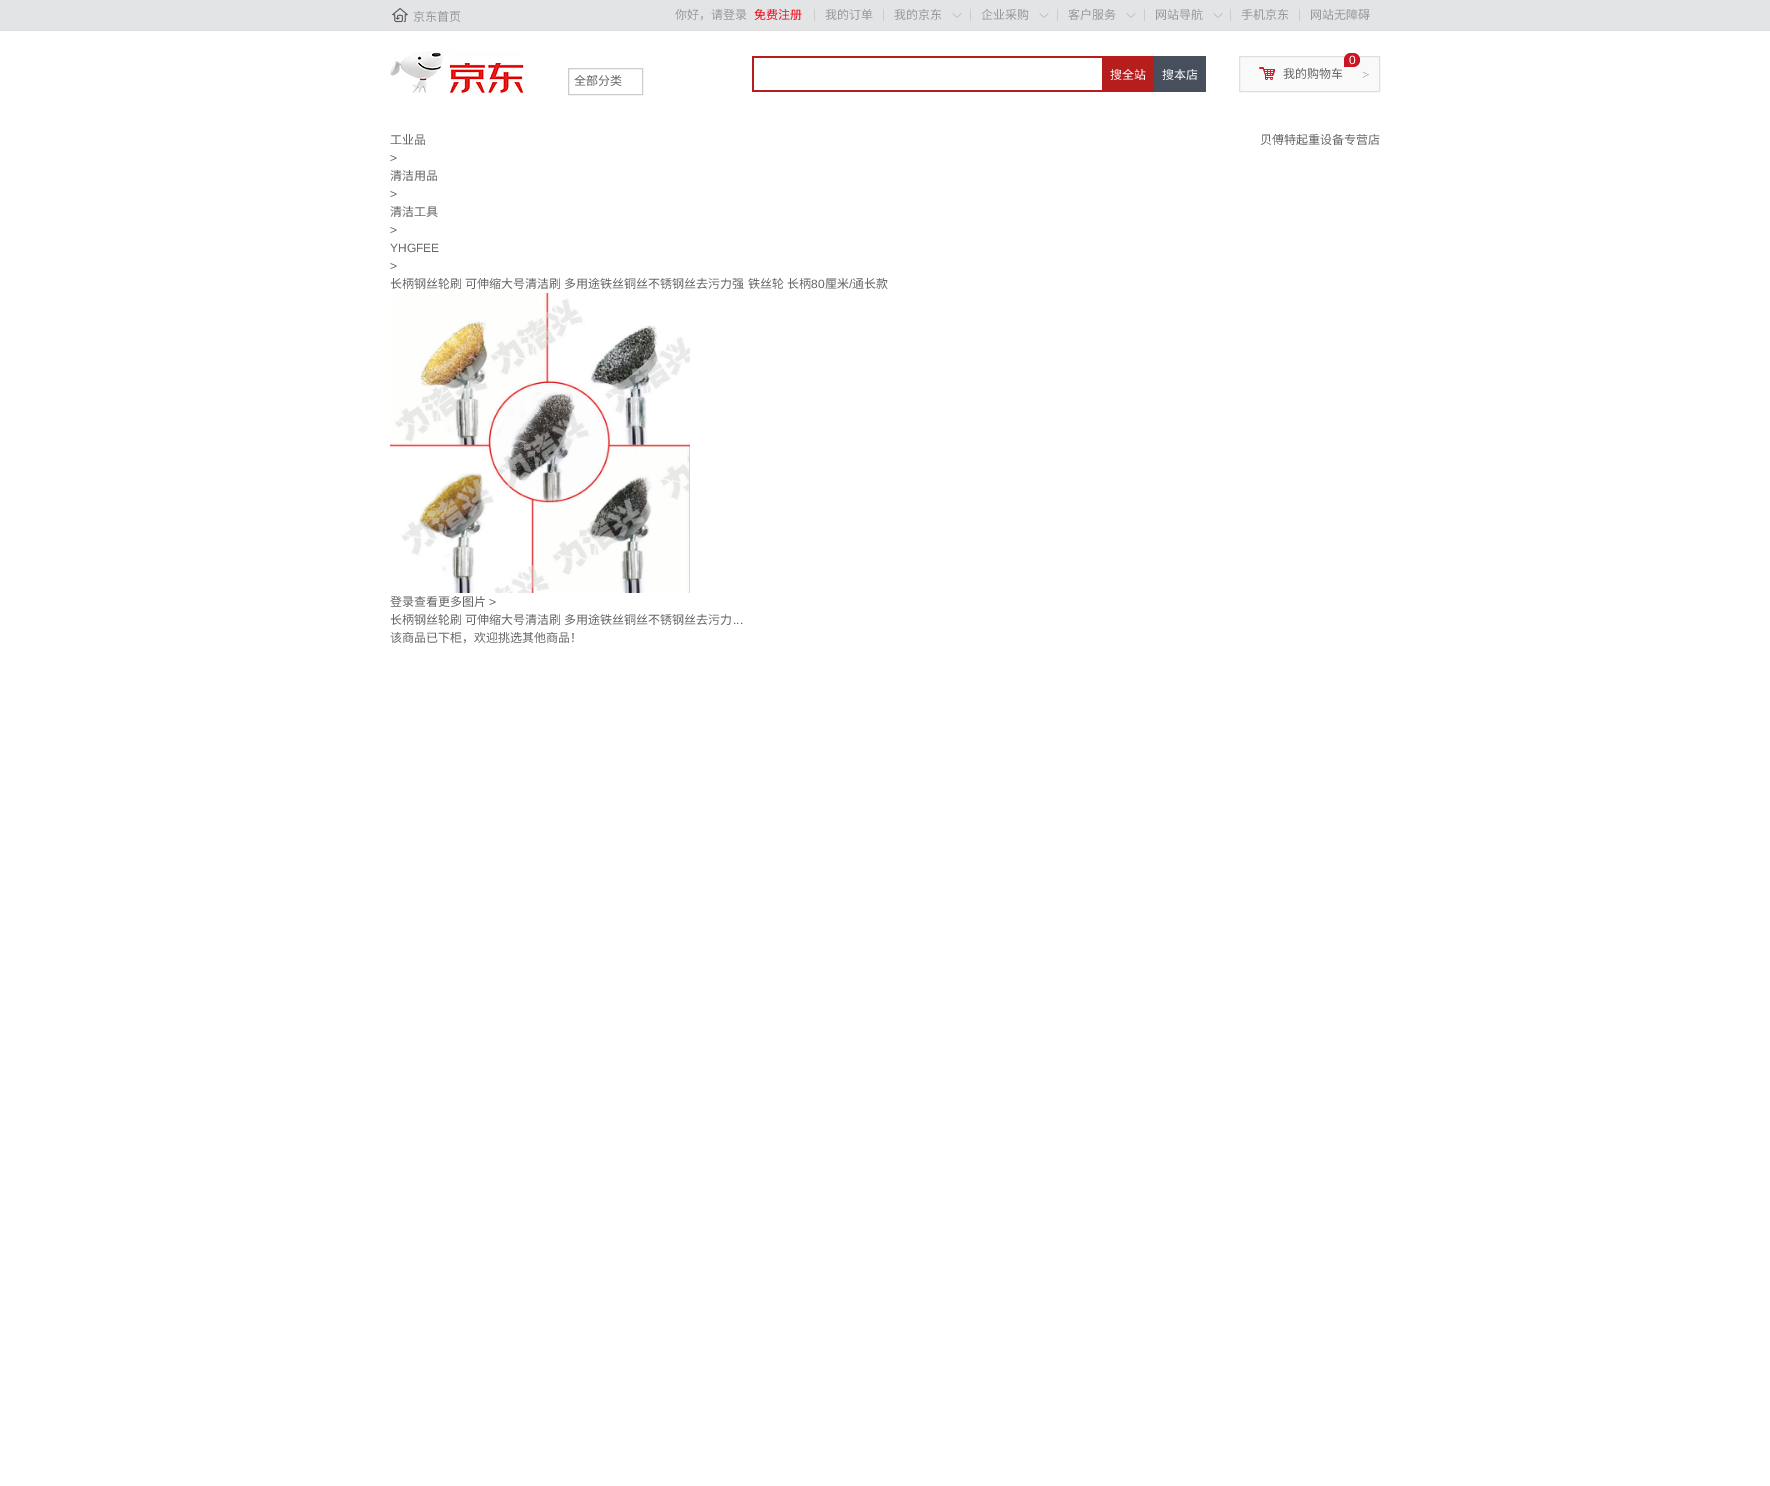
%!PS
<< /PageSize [1770 1486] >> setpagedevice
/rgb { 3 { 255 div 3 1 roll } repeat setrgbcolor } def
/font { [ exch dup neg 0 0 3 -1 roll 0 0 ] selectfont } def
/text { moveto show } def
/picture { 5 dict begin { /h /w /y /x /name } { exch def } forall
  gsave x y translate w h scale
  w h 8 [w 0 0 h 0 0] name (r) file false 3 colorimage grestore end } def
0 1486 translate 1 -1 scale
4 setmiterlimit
255 255 255 rgb
0 0 1770 1486 rectfill
227 228 229 rgb
0 0 1770 30 rectfill
221 221 221 rgb
0 30 1770 1 rectfill
(img_01.rgb) 392 8 16 15 picture
204 204 204 rgb
814 9 1 12 rectfill
883 9 1 12 rectfill
(img_02.rgb) 952 13 10 5 picture
970 9 1 12 rectfill
(img_02.rgb) 1039 13 10 5 picture
1057 9 1 12 rectfill
(img_02.rgb) 1126 13 10 5 picture
1144 9 1 12 rectfill
(img_02.rgb) 1213 13 10 5 picture
1230 9 1 12 rectfill
1299 9 1 12 rectfill
(img_03.rgb) 390 51 134 42 picture
568.5 68.5 74 26 rectstroke
182 29 29 rgb
752 56 350 2 rectfill
752 90 350 2 rectfill
752 56 2 36 rectfill
1102 56 52 36 rectfill
71 78 92 rgb
1154 56 52 36 rectfill
249 249 249 rgb
1239.5 56.5 moveto 140 0 rlineto 0 35 rlineto -140 0 rlineto closepath gsave fill grestore
223 223 223 rgb
stroke
200 22 35 rgb
1351 53 moveto 2 0 rlineto 4 0 7 3 7 7 rcurveto 0 4 -3 7 -7 7 rcurveto -9 0 rlineto 0 -7 rlineto 0 -4 3 -7 7 -7 rcurveto closepath fill
(img_04.rgb) 1259 67 16 13 picture
(img_05.rgb) 390 293 300 300 picture
/NotoSansCJKSC-Regular 12 font
153 153 153 rgb
(京东首页) 413 21 text
(你好，请登录) 675 19 text
243 2 19 rgb
(免费注册) 754 19 text
153 153 153 rgb
(我的订单) 825 19 text
(我的京东) 894 19 text
(企业采购) 981 19 text
(客户服务) 1068 19 text
(网站导航) 1155 19 text
(手机京东) 1241 19 text
(网站无障碍) 1310 19 text
102 102 102 rgb
(全部分类) 574 85 text
255 255 255 rgb
(搜全站) 1110 79 text
(搜本店) 1162 79 text
/LiberationSans-Regular 12 font
(0) 1349 64 text
/NotoSansCJKSC-Regular 12 font
102 102 102 rgb
(我的购物车) 1283 78 text
/LiberationSerif-Regular 13 font
153 153 153 rgb
(>) 1362 79 text
/NotoSansCJKSC-Regular 12 font
102 102 102 rgb
(工业品) 390 144 text
/LiberationSans-Regular 12 font
(>) 390 162 text
/NotoSansCJKSC-Regular 12 font
(清洁用品) 390 180 text
/LiberationSans-Regular 12 font
(>) 390 198 text
/NotoSansCJKSC-Regular 12 font
(清洁工具) 390 216 text
/LiberationSans-Regular 12 font
(>) 390 234 text
(YHGFEE) 390 252 text
(>) 390 270 text
/NotoSansCJKSC-Regular 12 font
390 288 moveto 0.5 0 32 (长柄钢丝轮刷 可伸缩大号清洁刷 多用途铁丝铜丝不锈钢丝去污力强 铁丝轮 长柄) widthshow
/LiberationSans-Regular 12 font
(80) 811 288 text
/NotoSansCJKSC-Regular 12 font
(厘米) 825 288 text
/LiberationSans-Regular 12 font
(/) 849 288 text
/NotoSansCJKSC-Regular 12 font
(通长款) 852 288 text
(贝傅特起重设备专营店) 1260 144 text
(登录查看更多图片) 390 606 text
/LiberationSans-Regular 12 font
(>) 489 606 text
/NotoSansCJKSC-Regular 12 font
390 624 moveto 0.5 0 32 (长柄钢丝轮刷 可伸缩大号清洁刷 多用途铁丝铜丝不锈钢丝去污力) widthshow
/LiberationSans-Regular 12 font
(...) 733 624 text
/NotoSansCJKSC-Regular 12 font
(该商品已下柜，欢迎挑选其他商品！) 390 642 text
showpage
